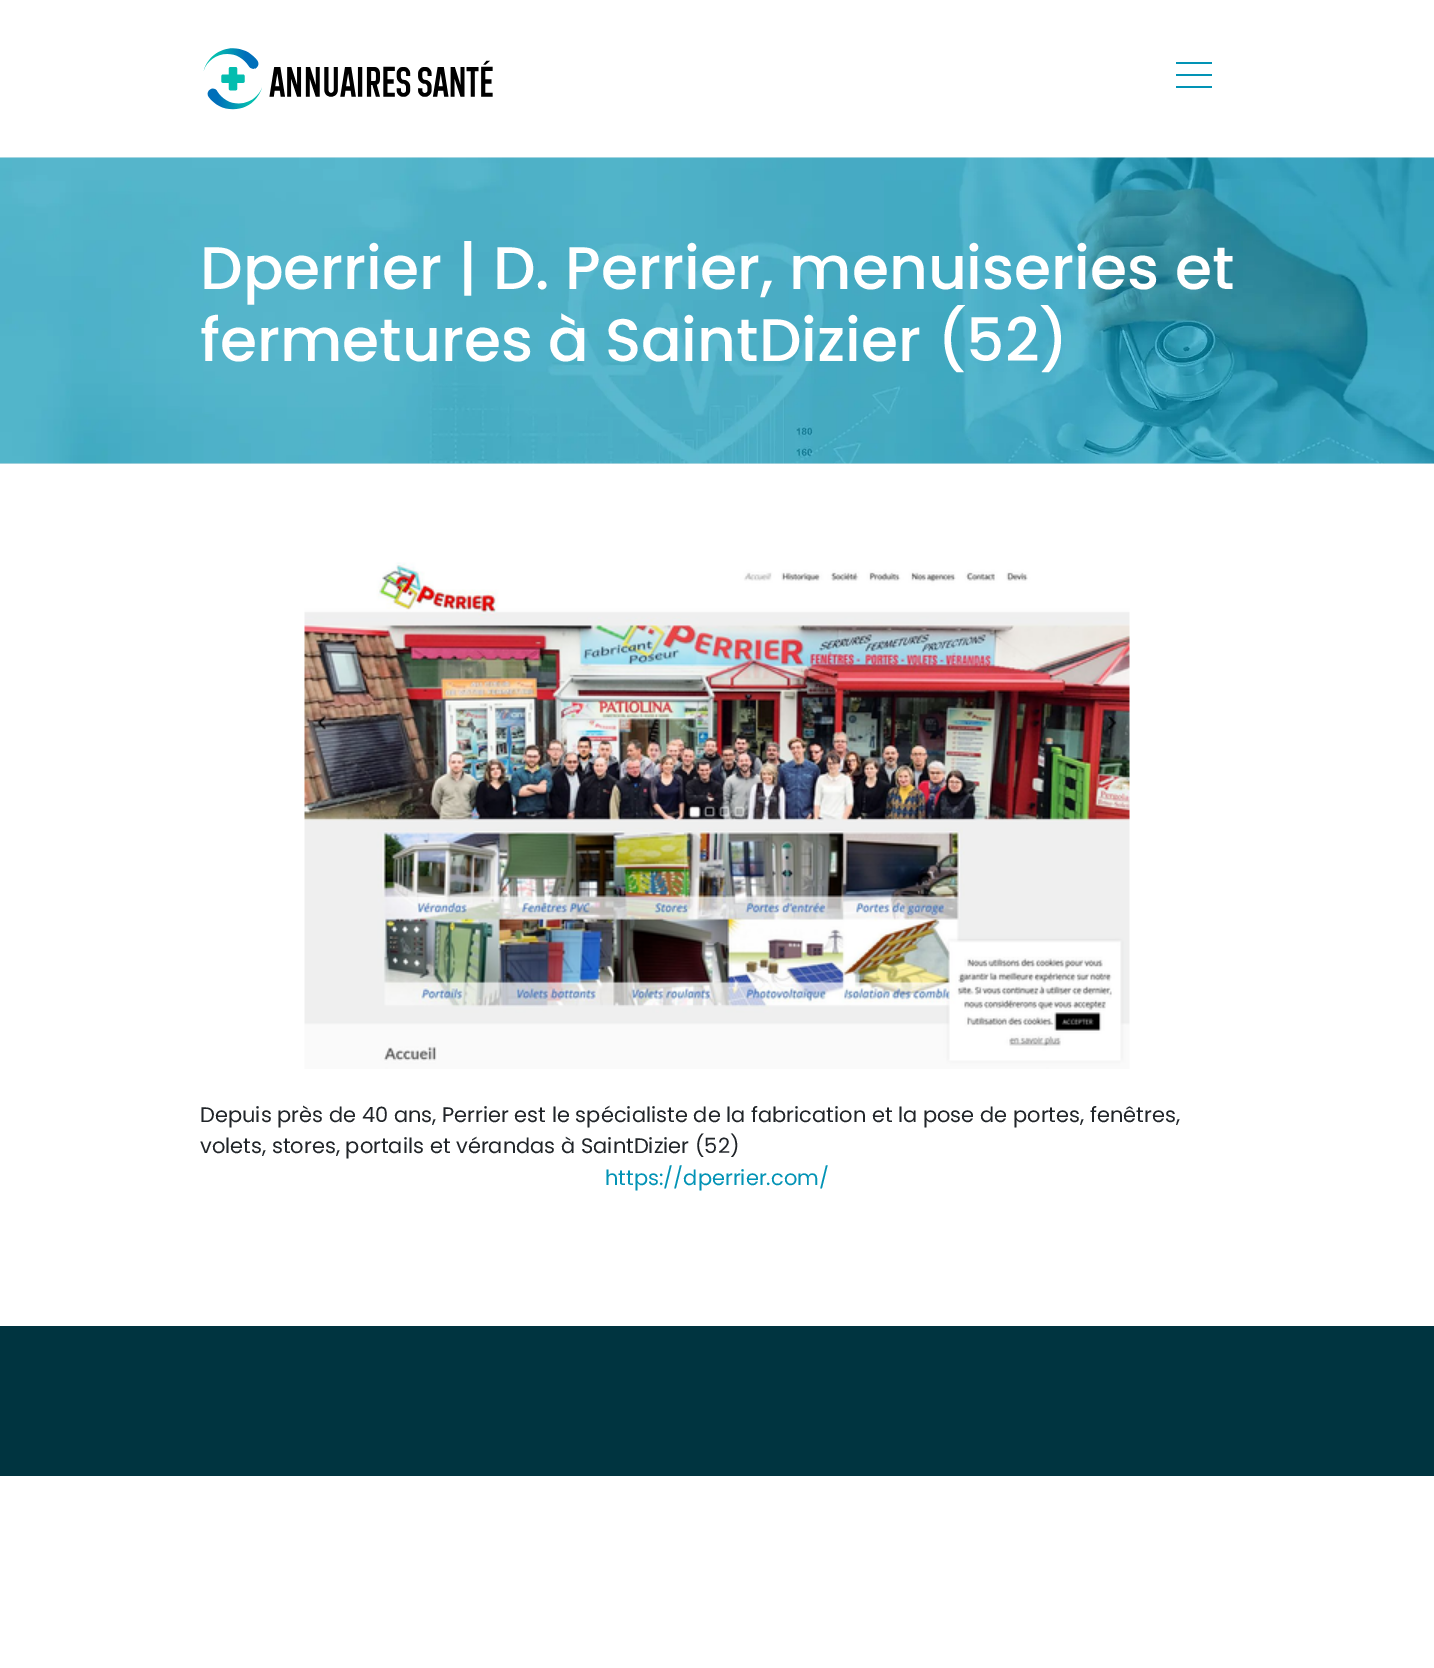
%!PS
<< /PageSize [1434 1668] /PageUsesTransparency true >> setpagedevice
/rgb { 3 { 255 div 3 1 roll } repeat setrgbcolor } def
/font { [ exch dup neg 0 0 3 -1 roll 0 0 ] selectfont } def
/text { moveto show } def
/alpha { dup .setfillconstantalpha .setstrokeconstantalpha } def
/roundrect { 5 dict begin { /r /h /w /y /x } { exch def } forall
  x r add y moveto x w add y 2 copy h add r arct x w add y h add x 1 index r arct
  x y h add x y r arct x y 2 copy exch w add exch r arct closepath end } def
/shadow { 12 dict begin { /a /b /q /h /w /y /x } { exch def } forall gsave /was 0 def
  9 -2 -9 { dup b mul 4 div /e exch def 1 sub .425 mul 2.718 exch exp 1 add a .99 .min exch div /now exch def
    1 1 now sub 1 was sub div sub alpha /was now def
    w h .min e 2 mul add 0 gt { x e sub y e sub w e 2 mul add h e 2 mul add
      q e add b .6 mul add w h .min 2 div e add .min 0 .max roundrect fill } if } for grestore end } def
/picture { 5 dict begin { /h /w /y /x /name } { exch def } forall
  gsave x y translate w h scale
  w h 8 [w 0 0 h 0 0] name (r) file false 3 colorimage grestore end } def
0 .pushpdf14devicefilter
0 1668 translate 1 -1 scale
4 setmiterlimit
255 255 255 rgb
0 0 1434 1668 rectfill
gsave
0 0 moveto 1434 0 rlineto 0 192 rlineto -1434 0 rlineto closepath 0 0 moveto 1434 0 rlineto 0 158 rlineto -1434 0 rlineto closepath eoclip newpath
0 0 0 rgb
0 3 1434 158 0 10 0.1 shadow
grestore
(img_01.rgb) 203 48 290 62 picture
2 147 181 rgb
1176 62 36 2 rectfill
1176 74 36 2 rectfill
1176 86 36 2 rectfill
238 238 238 rgb
0 463 1434 1 rectfill
(img_02.rgb) 0 157 1434 307 picture
(img_03.rgb) 304 562 826 507 picture
0 52 64 rgb
0 1326 1434 150 rectfill
/Poppins-Medium 60 font
255 255 255 rgb
(Dperrier | D. Perrier, menuiseries et) 200 289 text
(fermetures à SaintDizier \(52\)) 200 361 text
/Poppins-Regular 21 font
33 37 41 rgb
(Depuis près de 40 ans, Perrier est le spécialiste de la fabrication et la pose de portes, fenêtres,) 200 1122 text
(volets, stores, portails et vérandas à SaintDizier \(52\)) 200 1153 text
2 147 181 rgb
(https://dperrier.com/) 605 1185 text
.poppdf14devicefilter showpage
